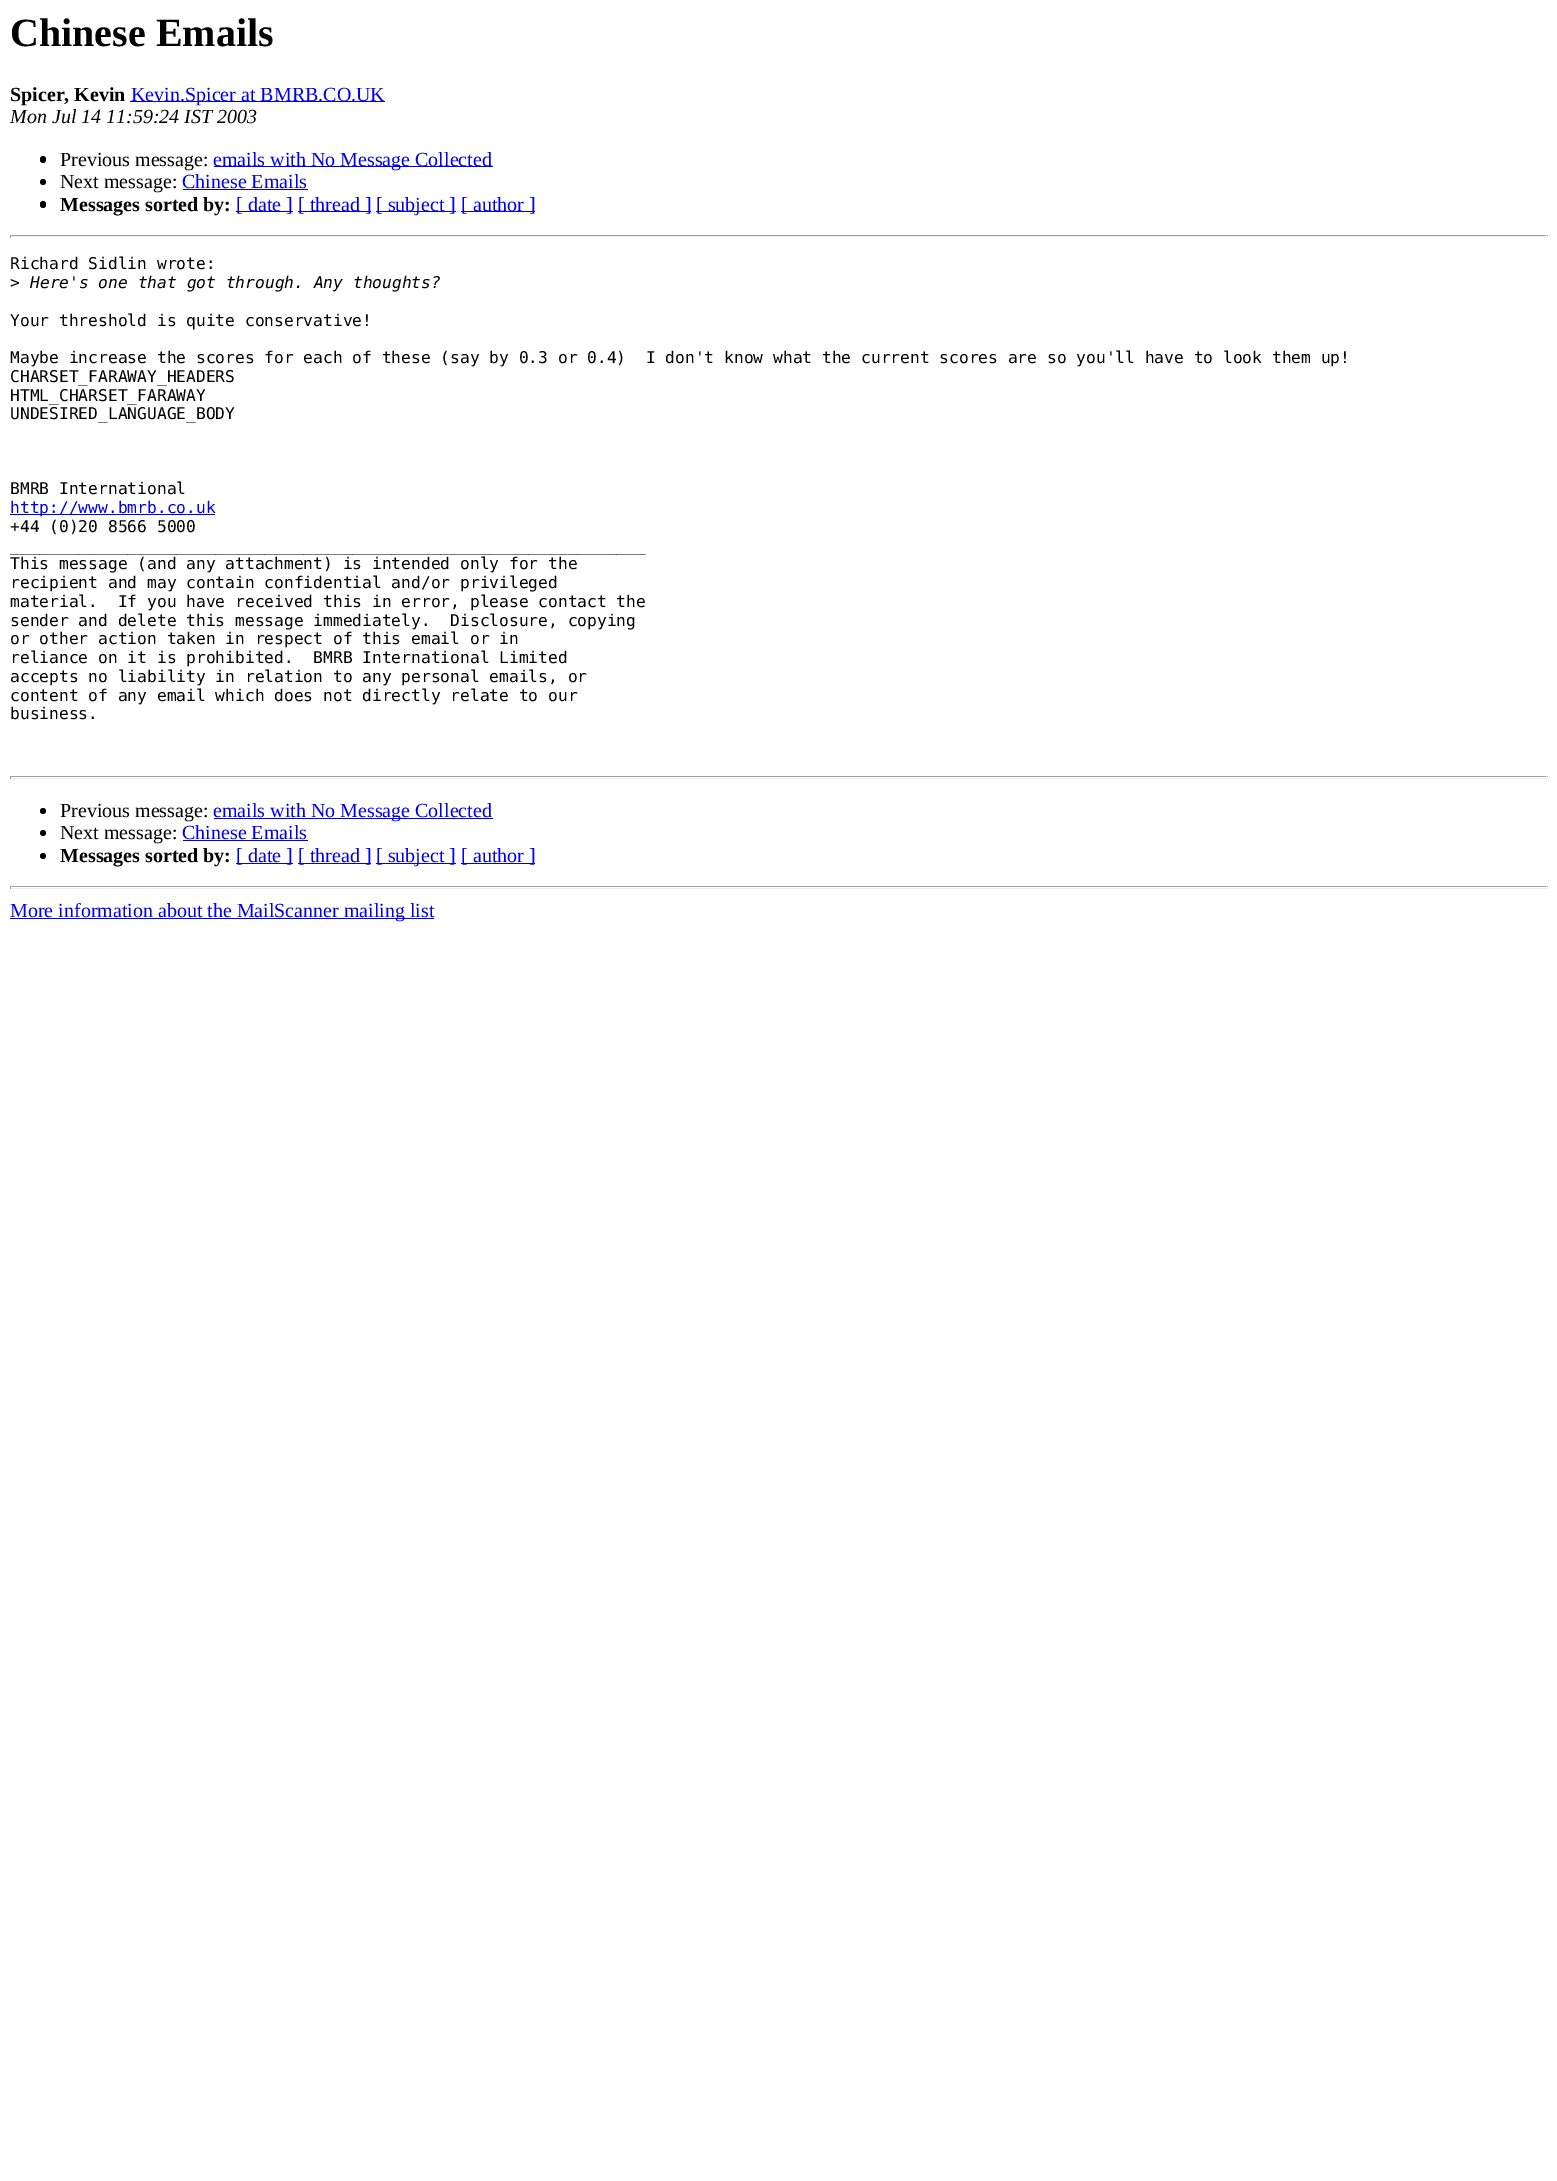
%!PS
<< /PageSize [1557 2181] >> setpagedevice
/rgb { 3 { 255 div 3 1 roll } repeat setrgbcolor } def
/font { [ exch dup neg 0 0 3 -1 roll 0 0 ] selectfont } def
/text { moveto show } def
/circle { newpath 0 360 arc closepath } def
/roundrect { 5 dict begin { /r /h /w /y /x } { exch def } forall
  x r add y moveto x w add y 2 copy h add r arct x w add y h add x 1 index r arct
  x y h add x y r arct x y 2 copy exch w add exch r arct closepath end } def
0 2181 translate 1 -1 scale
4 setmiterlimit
255 255 255 rgb
0 0 1557 2181 rectfill
0 0 238 rgb
130 101 255 1 rectfill
0 0 0 rgb
40 156 6 7 3 roundrect fill
0 0 238 rgb
214 166 279 1 rectfill
0 0 0 rgb
43 182 3 circle fill
0 0 238 rgb
183 189 125 1 rectfill
0 0 0 rgb
40 201 6 7 3 roundrect fill
0 0 238 rgb
236 211 57 1 rectfill
298 211 73 1 rectfill
376 211 80 1 rectfill
461 211 74 1 rectfill
159 159 159 rgb
10 235 1538 1 rectfill
238 238 238 rgb
1546 235 1 3 rectfill
10 236 1538 1 rectfill
159 159 159 rgb
10 235 1 3 rectfill
0 0 238 rgb
10 514 205 1 rectfill
159 159 159 rgb
10 776 1538 1 rectfill
238 238 238 rgb
1546 776 1 3 rectfill
10 778 1538 1 rectfill
159 159 159 rgb
10 776 1 3 rectfill
0 0 0 rgb
43 811 3 circle fill
0 0 238 rgb
214 818 279 1 rectfill
0 0 0 rgb
43 833 3 circle fill
0 0 238 rgb
183 840 125 1 rectfill
0 0 0 rgb
43 856 3 circle fill
0 0 238 rgb
236 863 57 1 rectfill
298 863 73 1 rectfill
376 863 80 1 rectfill
461 863 74 1 rectfill
159 159 159 rgb
10 886 1538 1 rectfill
238 238 238 rgb
1546 886 1 3 rectfill
10 888 1538 1 rectfill
159 159 159 rgb
10 886 1 3 rectfill
0 0 238 rgb
10 918 424 1 rectfill
/LiberationSerif-Bold 40 font
0 0 0 rgb
(Chinese Emails) 10 46 text
/LiberationSerif-Bold 20 font
(Spicer, Kevin) 10 101 text
/LiberationSerif-Regular 20 font
0 0 238 rgb
(Kevin.Spicer at BMRB.CO.UK) 131 101 text
/LiberationSerif-Italic 20 font
0 0 0 rgb
(Mon Jul 14 11:59:24 IST 2003) 10 123 text
/LiberationSerif-Regular 20 font
(Previous message:) 60 166 text
0 0 238 rgb
(emails with No Message Collected) 213 166 text
0 0 0 rgb
(Next message:) 60 188 text
0 0 238 rgb
(Chinese Emails) 182 188 text
/LiberationSerif-Bold 20 font
0 0 0 rgb
(Messages sorted by:) 60 211 text
/LiberationSerif-Regular 20 font
0 0 238 rgb
([ date ]) 236 211 text
([ thread ]) 298 211 text
([ subject ]) 376 211 text
([ author ]) 461 211 text
/DejaVuSansMono-Regular 16.25 font
0 0 0 rgb
(Richard Sidlin wrote:) 10 269 text
(>) 10 288 text
/DejaVuSansMono-Italic 16.25 font
(Here's one that got through. Any thoughts?) 30 288 text
/DejaVuSansMono-Regular 16.25 font
(Your threshold is quite conservative!) 10 326 text
(Maybe increase the scores for each of these \(say by 0.3 or 0.4\)  I don't know what the current scores are so you'll have to look them up!) 10 363 text
(CHARSET_FARAWAY_HEADERS) 10 382 text
(HTML_CHARSET_FARAWAY) 10 401 text
(UNDESIRED_LANGUAGE_BODY) 10 419 text
(BMRB International) 10 494 text
0 0 238 rgb
(http://www.bmrb.co.uk) 10 513 text
0 0 0 rgb
(+44 \(0\)20 8566 5000) 10 532 text
(_________________________________________________________________) 10 551 text
(This message \(and any attachment\) is intended only for the) 10 569 text
(recipient and may contain confidential and/or privileged) 10 588 text
(material.  If you have received this in error, please contact the) 10 607 text
(sender and delete this message immediately.  Disclosure, copying) 10 626 text
(or other action taken in respect of this email or in) 10 644 text
(reliance on it is prohibited.  BMRB International Limited) 10 663 text
(accepts no liability in relation to any personal emails, or) 10 682 text
(content of any email which does not directly relate to our) 10 701 text
(business.) 10 719 text
/LiberationSerif-Regular 20 font
(Previous message:) 60 817 text
0 0 238 rgb
(emails with No Message Collected) 213 817 text
0 0 0 rgb
(Next message:) 60 839 text
0 0 238 rgb
(Chinese Emails) 182 839 text
/LiberationSerif-Bold 20 font
0 0 0 rgb
(Messages sorted by:) 60 862 text
/LiberationSerif-Regular 20 font
0 0 238 rgb
([ date ]) 236 862 text
([ thread ]) 298 862 text
([ subject ]) 376 862 text
([ author ]) 461 862 text
(More information about the MailScanner mailing list) 10 917 text
showpage
